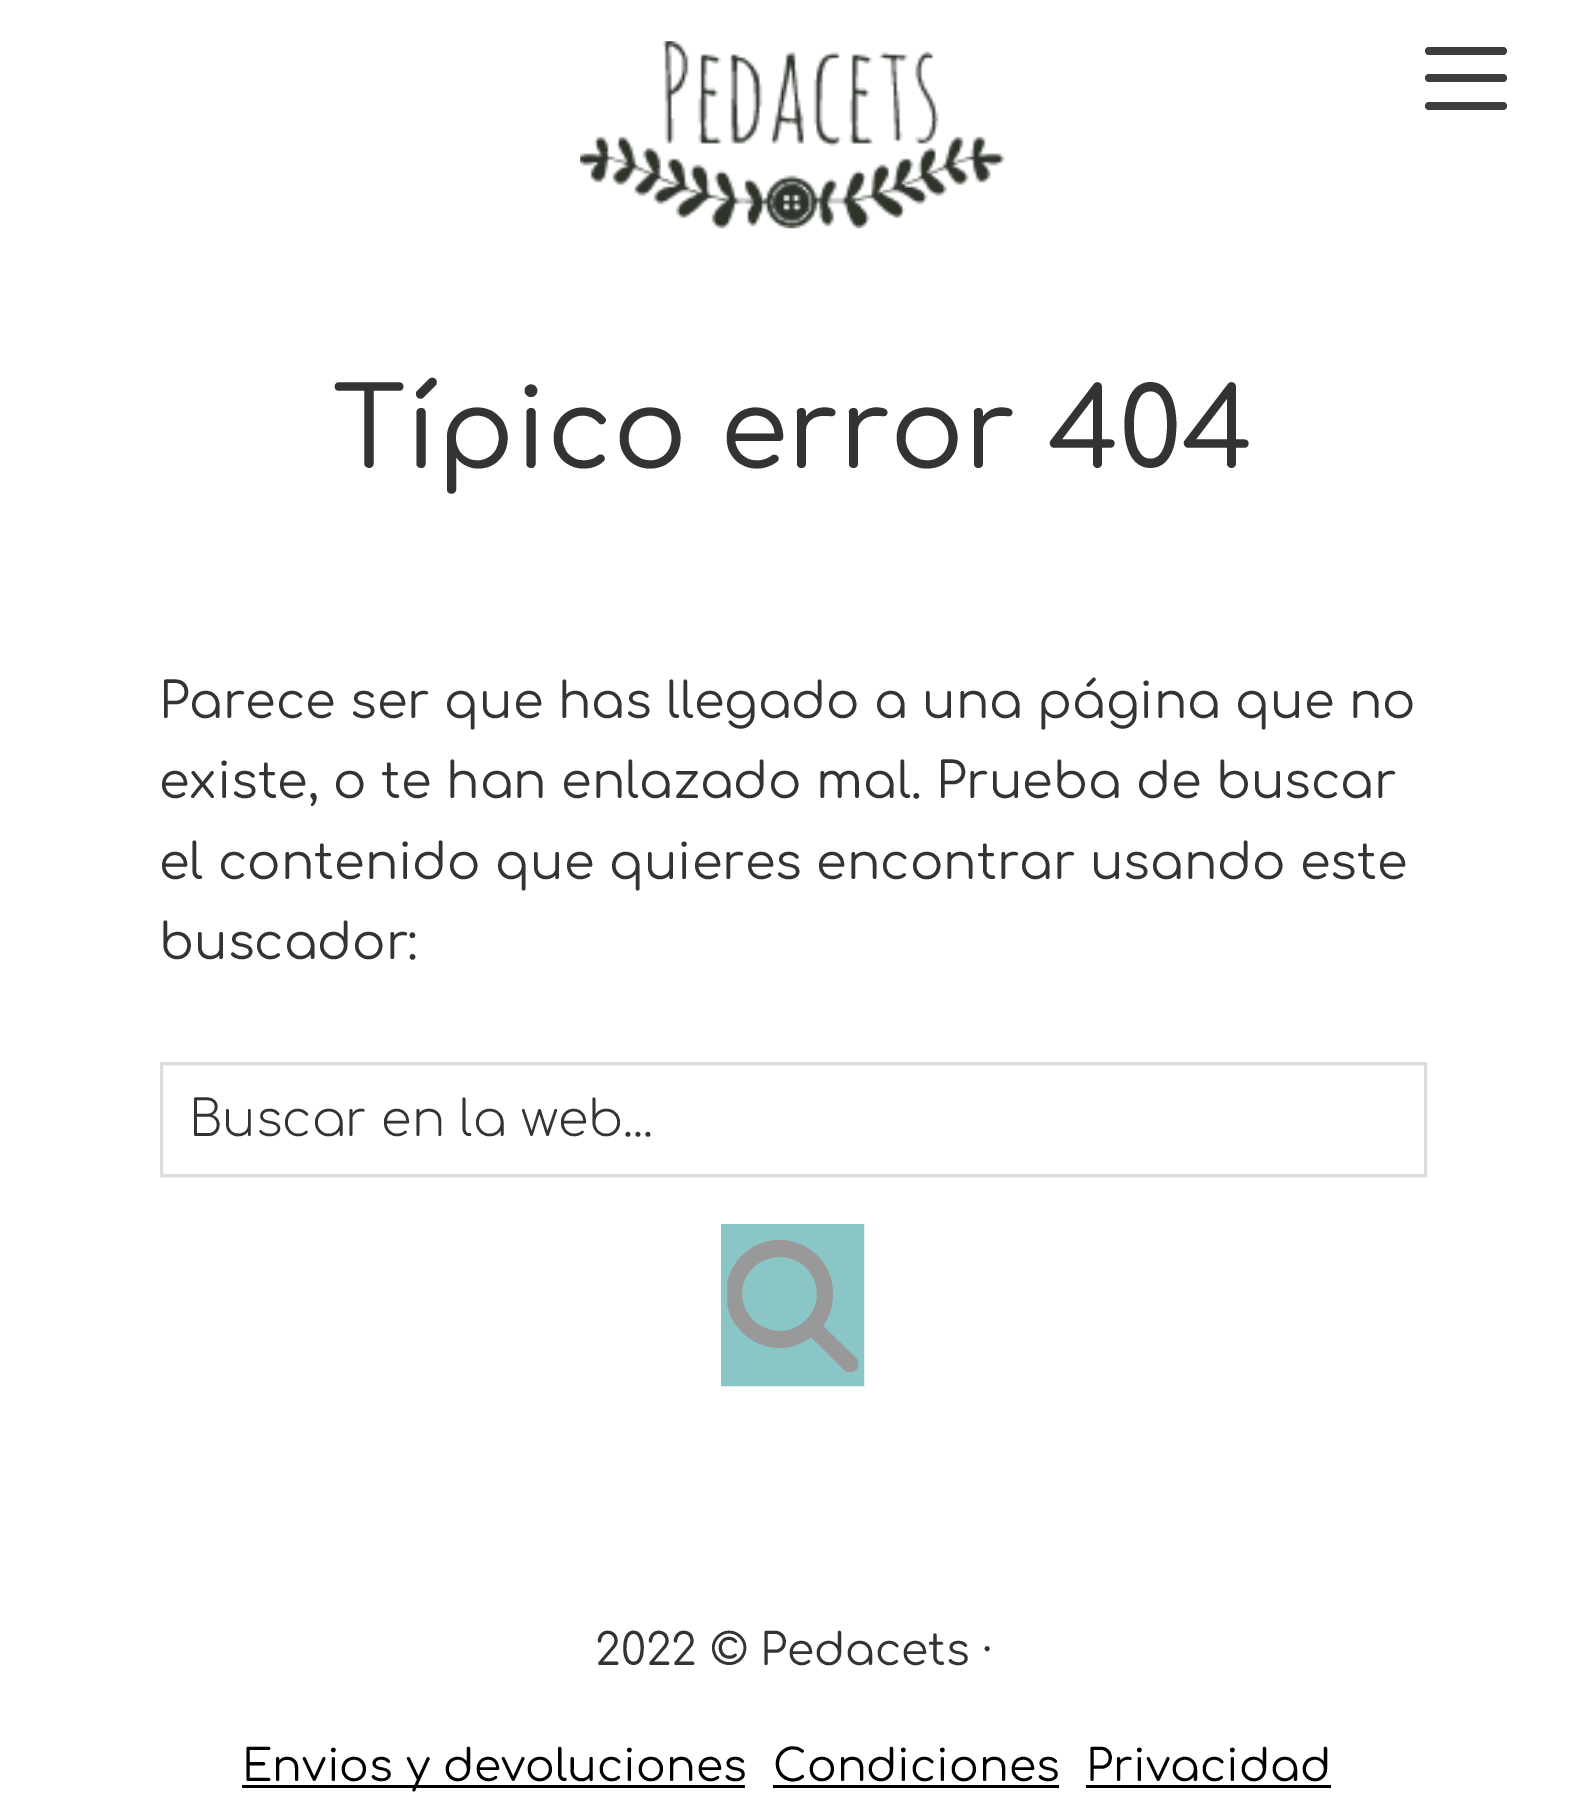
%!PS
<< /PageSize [1585 1802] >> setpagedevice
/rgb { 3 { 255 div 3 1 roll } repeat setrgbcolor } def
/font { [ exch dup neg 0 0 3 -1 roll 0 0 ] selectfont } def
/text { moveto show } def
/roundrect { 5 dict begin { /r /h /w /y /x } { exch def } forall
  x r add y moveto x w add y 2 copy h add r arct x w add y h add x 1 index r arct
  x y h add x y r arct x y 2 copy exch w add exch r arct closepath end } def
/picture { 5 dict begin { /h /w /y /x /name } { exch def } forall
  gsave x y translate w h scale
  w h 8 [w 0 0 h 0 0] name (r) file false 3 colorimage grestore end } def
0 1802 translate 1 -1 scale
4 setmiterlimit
255 255 255 rgb
0 0 1585 1802 rectfill
(img_01.rgb) 580 41 425 188 picture
62 62 62 rgb
1425 74 82 8 4 roundrect fill
1425 47 82 8 4 roundrect fill
1425 102 82 8 4 roundrect fill
221 221 221 rgb
3 setlinewidth
161.5 1063.5 1264 112 rectstroke
139 198 198 rgb
727 1230 131 150 rectfill
gsave
726 1240 132 132 rectclip
153 153 153 rgb
833 1294 moveto 0 12 -4 23 -10 32 rcurveto 33 32 rlineto 3 3 3 9 0 12 rcurveto -4 3 -9 3 -12 0 rcurveto -33 -33 rlineto -9 7 -20 11 -31 11 rcurveto -30 0 -54 -25 -54 -54 rcurveto 0 -30 24 -54 54 -54 rcurveto 29 0 53 24 53 54 rcurveto closepath 780 1331 moveto 20 0 37 -17 37 -37 rcurveto 0 -21 -17 -37 -37 -37 rcurveto -21 0 -38 16 -38 37 rcurveto 0 20 17 37 38 37 rcurveto closepath fill
grestore
6 setlinewidth
724 1227 137 156 rectstroke
0 0 0 rgb
242 1785 503 3 rectfill
773 1785 286 3 rectfill
1086 1785 245 3 rectfill
/Comfortaa-Medium 110 font
51 51 51 rgb
(Típico error 404) 333 468 text
/Comfortaa-Regular 49.5 font
(Parece ser que has llegado a una página que no) 159 718 text
(existe, o te han enlazado mal. Prueba de buscar) 159 798 text
(el contenido que quieres encontrar usando este) 159 879 text
(buscador:) 159 959 text
/Comfortaa-Light 49.5 font
(Buscar en la web...) 189 1136 text
/Comfortaa-Regular 44 font
(2022 © Pedacets ·) 595 1665 text
0 0 0 rgb
(Envios y devoluciones) 242 1781 text
(Condiciones) 773 1781 text
(Privacidad) 1086 1781 text
showpage
